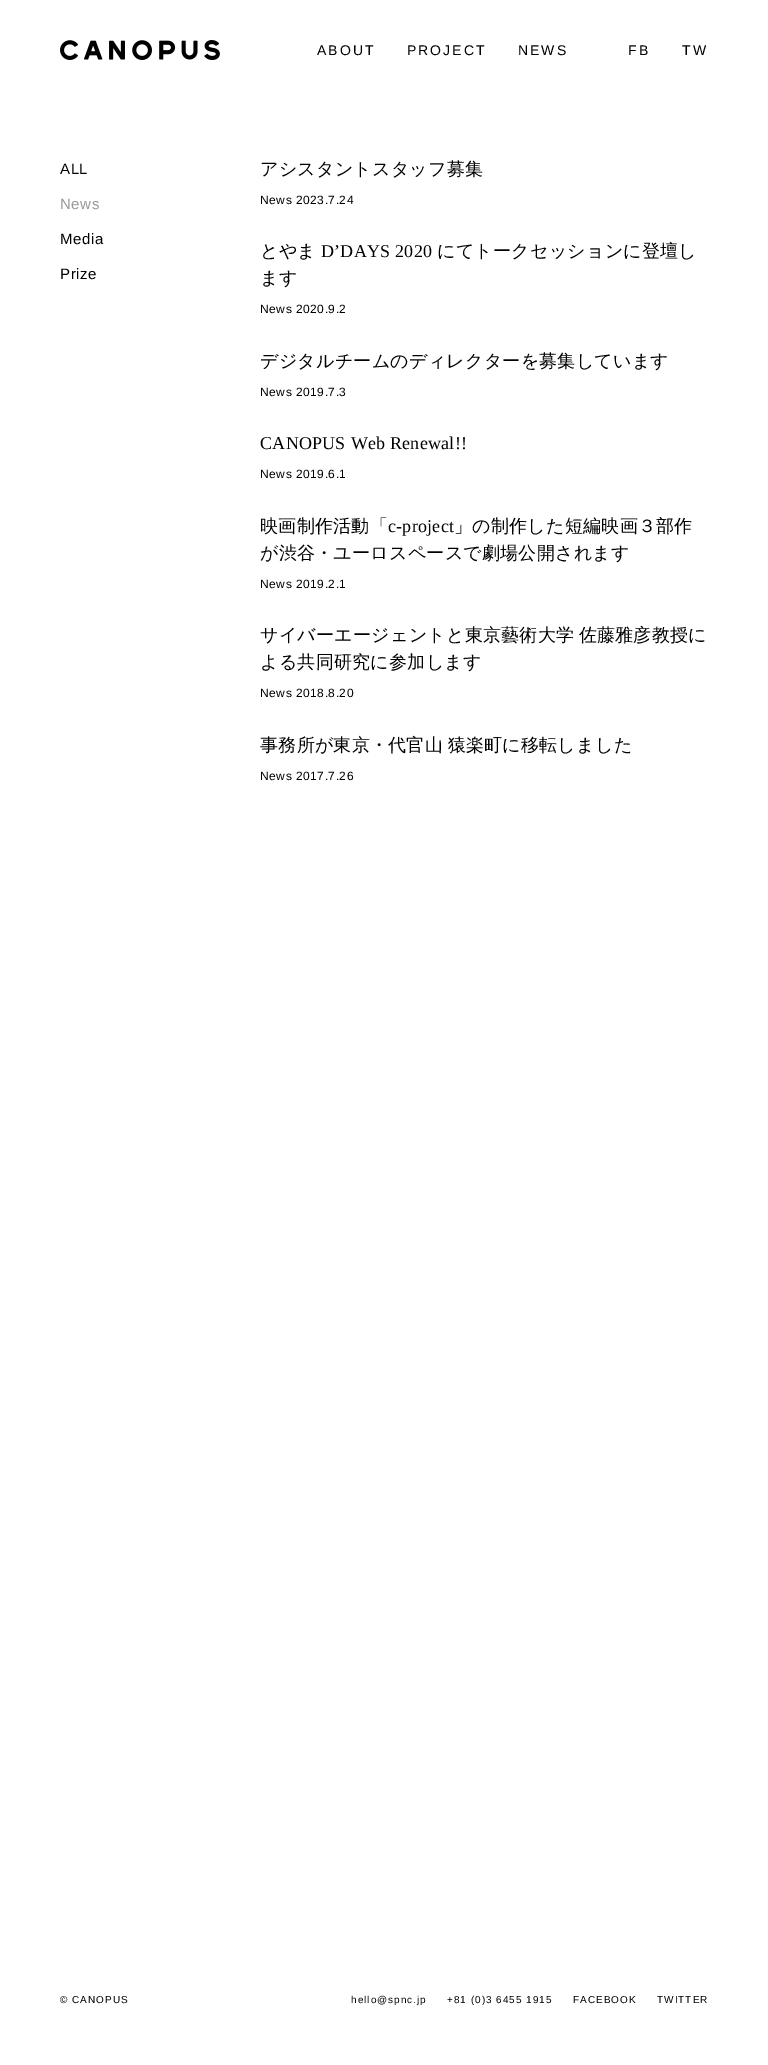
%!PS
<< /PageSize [768 2065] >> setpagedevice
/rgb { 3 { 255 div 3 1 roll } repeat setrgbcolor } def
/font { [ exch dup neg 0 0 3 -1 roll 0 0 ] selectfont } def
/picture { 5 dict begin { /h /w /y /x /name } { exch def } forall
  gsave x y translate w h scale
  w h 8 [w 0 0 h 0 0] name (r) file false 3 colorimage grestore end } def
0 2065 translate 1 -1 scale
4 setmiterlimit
255 255 255 rgb
0 0 768 2065 rectfill
(img_01.rgb) 60 40 160 20 picture
/LiberationSans-Regular 14 font
0 0 0 rgb
317 55 moveto 2 0 (ABOUT) ashow
407 55 moveto 2 0 (PROJECT) ashow
518 55 moveto 2 0 (NEWS) ashow
628 55 moveto 2 0 (FB) ashow
682 55 moveto 2 0 (TW) ashow
/LiberationSans-Regular 15 font
60 174 moveto 0.5 0 (ALL) ashow
153 153 153 rgb
60 209 moveto 0.5 0 (News) ashow
0 0 0 rgb
60 244 moveto 0.5 0 (Media) ashow
60 279 moveto 0.5 0 (Prize) ashow
/WenQuanYiZenHei-Medium 18 font
260 175 moveto 0.25 0 (アシスタントスタッフ募集) ashow
/LiberationSans-Regular 12 font
260 204 moveto 0.5 0 (News 2023.7.24) ashow
/WenQuanYiZenHei-Medium 18 font
260 257 moveto 0.25 0 (とやま) ashow
/LiberationSerif-Regular 18 font
321 257 moveto 0.25 0 (D’DAYS 2020) ashow
/WenQuanYiZenHei-Medium 18 font
437 257 moveto 0.25 0 (にてトークセッションに登壇し) ashow
260 284 moveto 0.25 0 (ます) ashow
/LiberationSans-Regular 12 font
260 313 moveto 0.5 0 (News 2020.9.2) ashow
/WenQuanYiZenHei-Medium 18 font
260 367 moveto 0.25 0 (デジタルチームのディレクターを募集しています) ashow
/LiberationSans-Regular 12 font
260 396 moveto 0.5 0 (News 2019.7.3) ashow
/LiberationSerif-Regular 18 font
260 449 moveto 0.25 0 (CANOPUS Web Renewal!!) ashow
/LiberationSans-Regular 12 font
260 478 moveto 0.5 0 (News 2019.6.1) ashow
/WenQuanYiZenHei-Medium 18 font
260 532 moveto 0.25 0 (映画制作活動「) ashow
/LiberationSerif-Regular 18 font
388 532 moveto 0.25 0 (c-project) ashow
/WenQuanYiZenHei-Medium 18 font
454 532 moveto 0.25 0 (」の制作した短編映画３部作) ashow
260 559 moveto 0.25 0 (が渋谷・ユーロスペースで劇場公開されます) ashow
/LiberationSans-Regular 12 font
260 588 moveto 0.5 0 (News 2019.2.1) ashow
/WenQuanYiZenHei-Medium 18 font
260 641 moveto -1 0 32 0.25 0 (サイバーエージェントと東京藝術大学 佐藤雅彦教授に) awidthshow
260 668 moveto 0.25 0 (よる共同研究に参加します) ashow
/LiberationSans-Regular 12 font
260 697 moveto 0.5 0 (News 2018.8.20) ashow
/WenQuanYiZenHei-Medium 18 font
260 751 moveto -1 0 32 0.25 0 (事務所が東京・代官山 猿楽町に移転しました) awidthshow
/LiberationSans-Regular 12 font
260 780 moveto 0.5 0 (News 2017.7.26) ashow
/LiberationSans-Regular 10 font
60 2003 moveto 1 0 (© CANOPUS) ashow
351 2003 moveto 1 0 (hello@spnc.jp) ashow
447 2003 moveto 1 0 (+81 \(0\)3 6455 1915) ashow
573 2003 moveto 1 0 (FACEBOOK) ashow
657 2003 moveto 1 0 (TWITTER) ashow
showpage
